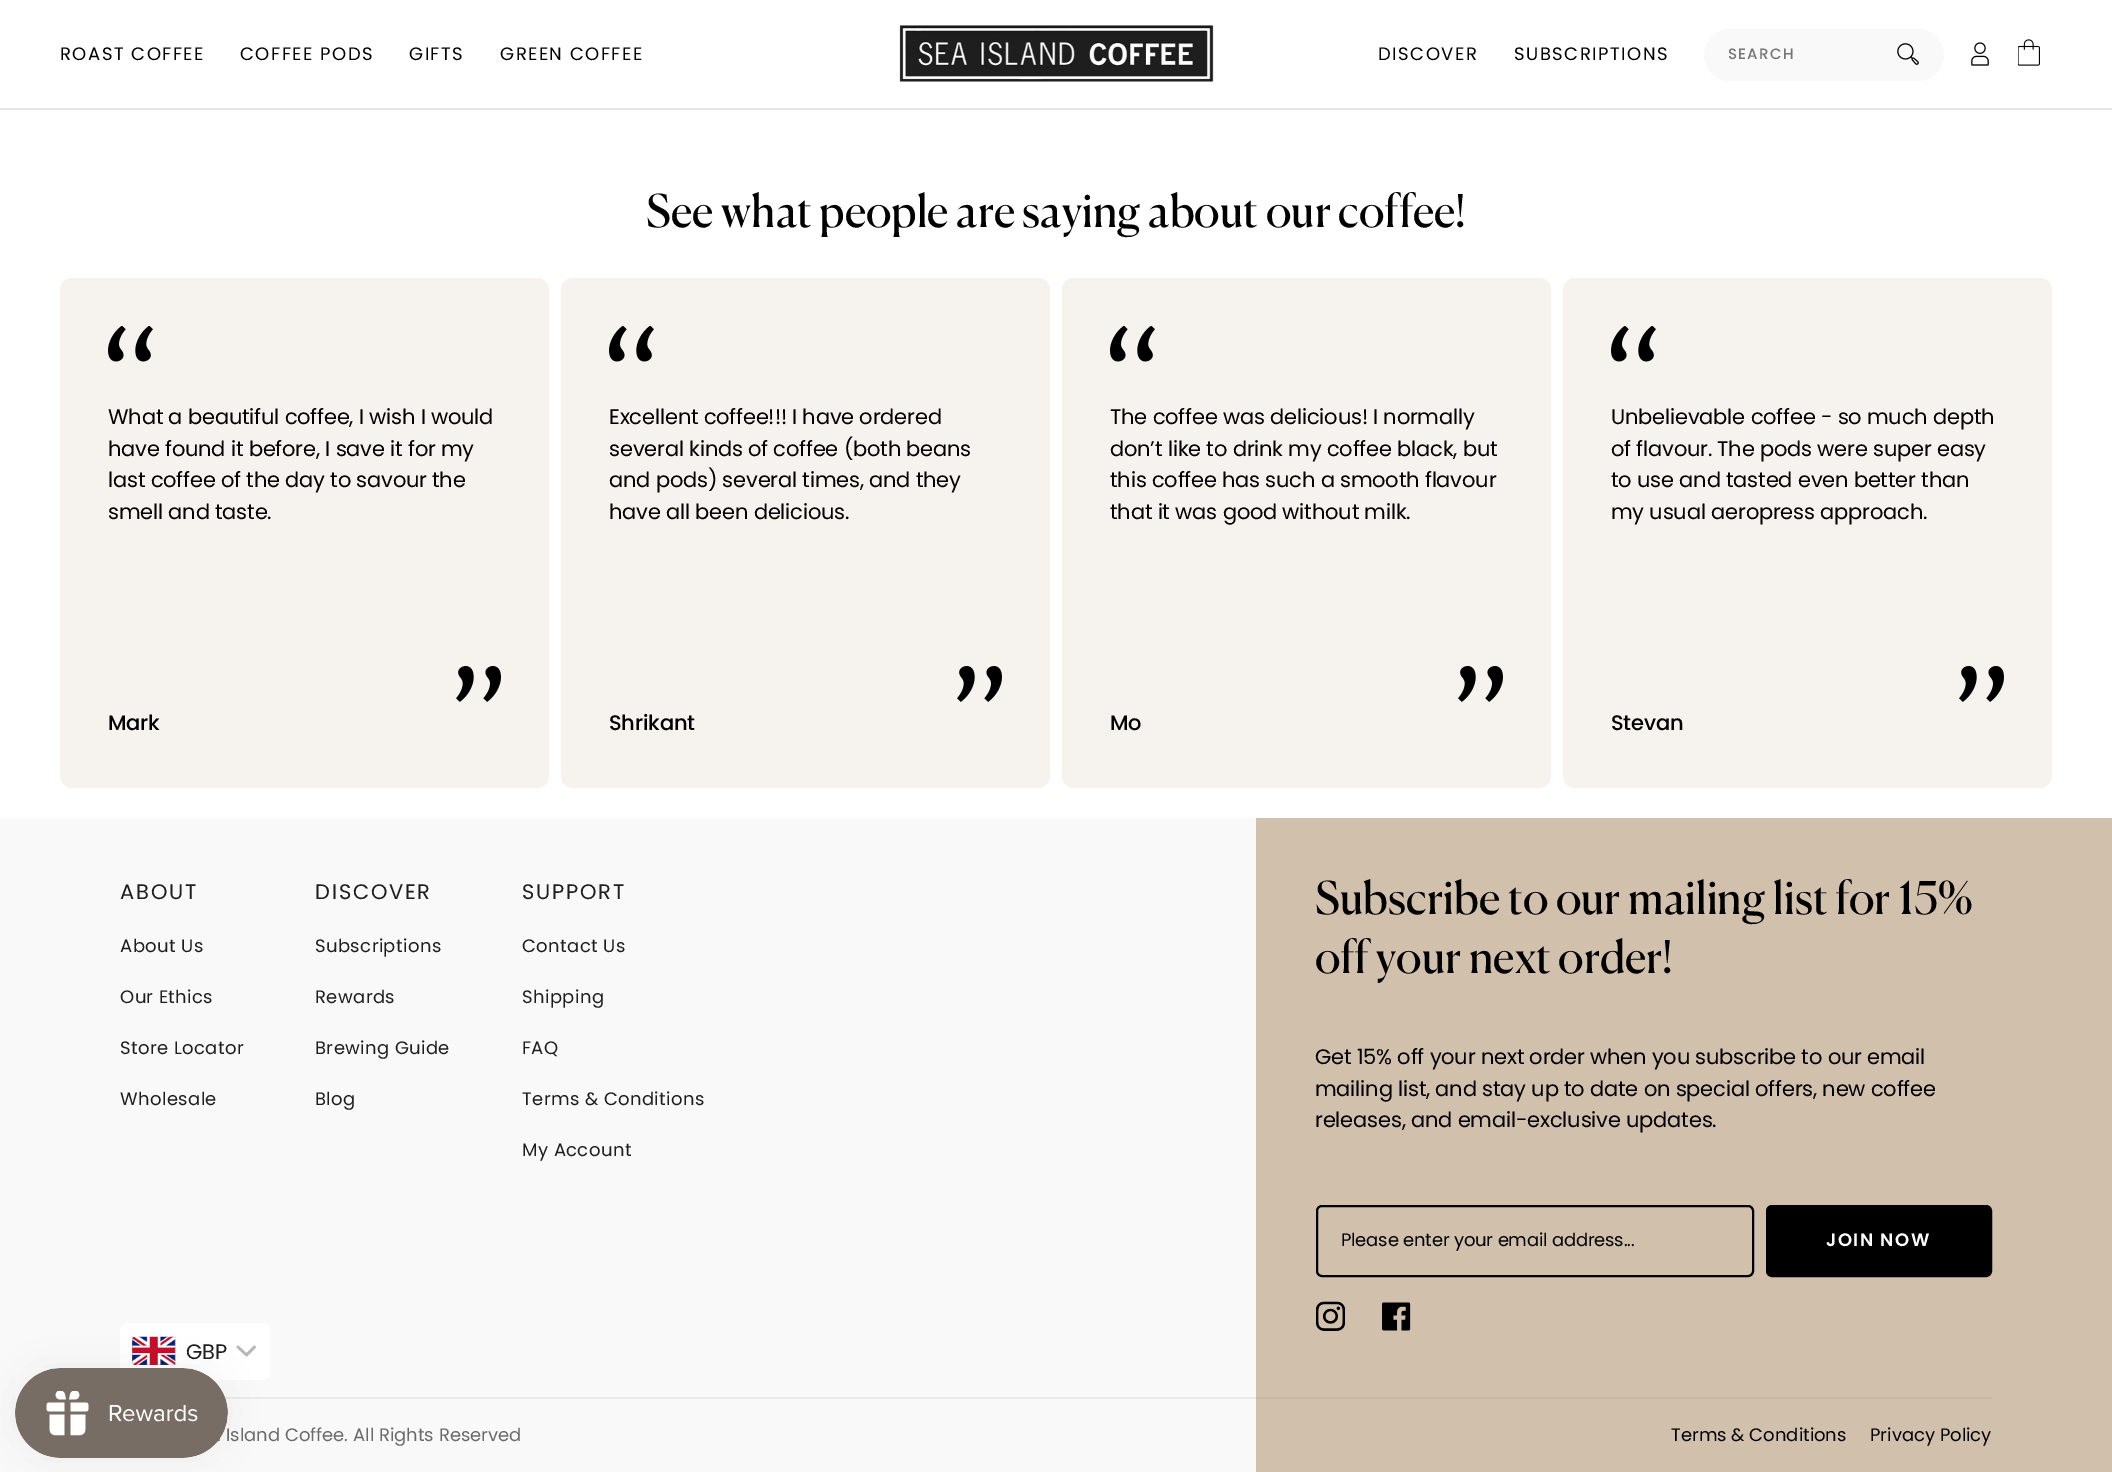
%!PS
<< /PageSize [2112 1472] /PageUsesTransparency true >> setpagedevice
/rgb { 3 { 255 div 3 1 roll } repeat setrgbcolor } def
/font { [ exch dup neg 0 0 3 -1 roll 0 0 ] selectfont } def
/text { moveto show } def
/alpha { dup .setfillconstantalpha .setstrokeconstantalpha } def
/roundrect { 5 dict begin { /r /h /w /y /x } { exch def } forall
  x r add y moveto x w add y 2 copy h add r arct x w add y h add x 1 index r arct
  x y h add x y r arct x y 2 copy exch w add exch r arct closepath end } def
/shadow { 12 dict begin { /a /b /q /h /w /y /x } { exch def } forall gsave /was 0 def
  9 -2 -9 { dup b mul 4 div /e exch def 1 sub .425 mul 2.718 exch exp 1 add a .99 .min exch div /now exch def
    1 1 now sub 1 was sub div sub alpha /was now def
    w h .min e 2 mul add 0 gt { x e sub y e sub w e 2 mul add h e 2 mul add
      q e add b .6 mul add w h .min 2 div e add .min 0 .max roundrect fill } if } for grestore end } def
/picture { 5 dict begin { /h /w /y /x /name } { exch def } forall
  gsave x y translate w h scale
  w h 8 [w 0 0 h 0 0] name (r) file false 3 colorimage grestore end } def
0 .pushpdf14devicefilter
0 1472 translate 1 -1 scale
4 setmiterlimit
255 255 255 rgb
0 0 2112 1472 rectfill
230 230 230 rgb
0 108 2112 2 rectfill
(img_01.rgb) 899 25 315 57 picture
249 249 249 rgb
1704 29 240 52 26 roundrect fill
(img_02.rgb) 1897 43 22 22 picture
(img_03.rgb) 1971 42 18 24 picture
(img_04.rgb) 2018 39 22 27 picture
246 242 237 rgb
60 278 489 510 12 roundrect fill
(img_05.rgb) 108 326 45 36 picture
(img_06.rgb) 456 666 45 36 picture
561 278 489 510 12 roundrect fill
(img_05.rgb) 609 326 45 36 picture
(img_06.rgb) 957 666 45 36 picture
1062 278 489 510 12 roundrect fill
(img_05.rgb) 1110 326 45 36 picture
(img_06.rgb) 1458 666 45 36 picture
1563 278 489 510 12 roundrect fill
(img_05.rgb) 1611 326 45 36 picture
(img_06.rgb) 1959 666 45 36 picture
249 249 249 rgb
0 818 1256 654 rectfill
255 255 255 rgb
120 1323 150 57 8 roundrect fill
(img_07.rgb) 132 1336 44 29 picture
183 183 183 rgb
2.7 setlinewidth
1 setlinecap
1 setlinejoin
238 1347 moveto 8.5 8 rlineto 8 -8 rlineto stroke
235 235 235 rgb
225 1397 1031 2 rectfill
209 192 171 rgb
1256 818 856 654 rectfill
0 0 0 rgb
2 setlinewidth
0 setlinecap
0 setlinejoin
1317 1206 436 70 5 roundrect stroke
1767 1206 224 70 5 roundrect gsave fill grestore
stroke
(img_08.rgb) 1316 1301 29 30 picture
(img_09.rgb) 1382 1302 29 29 picture
199 183 165 rgb
1256 1397 736 2 rectfill
0 0 0 rgb
15 1368 213 90 45 19 0.05 shadow
/Poppins-Regular 18 font
60 60 moveto 1.5 0 (ROAST COFFEE) ashow
240 60 moveto 1.5 0 (COFFEE PODS) ashow
409 60 moveto 1.5 0 (GIFTS) ashow
500 60 moveto 1.5 0 (GREEN COFFEE) ashow
1378 60 moveto 1.5 0 (DISCOVER) ashow
1514 60 moveto 1.5 0 (SUBSCRIPTIONS) ashow
/Poppins-Medium 15 font
117 117 117 rgb
1728 59 moveto 1.25 0 (SEARCH) ashow
/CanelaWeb-Regular 45 font
0 0 0 rgb
(See what people are saying about our coffee!) 646 227 text
/Poppins-Regular 21 font
108 424 moveto -0.2 0 (What a beautiful coffee, I wish I would) ashow
108 456 moveto -0.2 0 (have found it before, I save it for my) ashow
108 487 moveto -0.2 0 (last coffee of the day to savour the) ashow
108 519 moveto -0.2 0 (smell and taste.) ashow
/Poppins-Medium 21 font
108 730 moveto -0.2 0 (Mark) ashow
/Poppins-Regular 21 font
609 424 moveto -0.2 0 (Excellent coffee!!! I have ordered) ashow
609 456 moveto -0.2 0 (several kinds of coffee \(both beans) ashow
609 487 moveto -0.2 0 (and pods\) several times, and they) ashow
609 519 moveto -0.2 0 (have all been delicious.) ashow
/Poppins-Medium 21 font
609 730 moveto -0.2 0 (Shrikant) ashow
/Poppins-Regular 21 font
1110 424 moveto -0.2 0 (The coffee was delicious! I normally) ashow
1110 456 moveto -0.2 0 (don’t like to drink my coffee black, but) ashow
1110 487 moveto -0.2 0 (this coffee has such a smooth flavour) ashow
1110 519 moveto -0.2 0 (that it was good without milk.) ashow
/Poppins-Medium 21 font
1110 730 moveto -0.2 0 (Mo) ashow
/Poppins-Regular 21 font
1611 424 moveto -0.2 0 (Unbelievable coffee - so much depth) ashow
1611 456 moveto -0.2 0 (of flavour. The pods were super easy) ashow
1611 487 moveto -0.2 0 (to use and tasted even better than) ashow
1611 519 moveto -0.2 0 (my usual aeropress approach.) ashow
/Poppins-Medium 21 font
1611 730 moveto -0.2 0 (Stevan) ashow
/Poppins-Regular 21 font
30 30 30 rgb
120 899 moveto 1.75 0 (ABOUT) ashow
/Poppins-Regular 18 font
120 952 moveto 0.4 0 (About Us) ashow
120 1003 moveto 0.4 0 (Our Ethics) ashow
120 1054 moveto 0.4 0 (Store Locator) ashow
120 1105 moveto 0.4 0 (Wholesale) ashow
/Poppins-Regular 21 font
315 899 moveto 1.75 0 (DISCOVER) ashow
/Poppins-Regular 18 font
315 952 moveto 0.4 0 (Subscriptions) ashow
315 1003 moveto 0.4 0 (Rewards) ashow
315 1054 moveto 0.4 0 (Brewing Guide) ashow
315 1105 moveto 0.4 0 (Blog) ashow
/Poppins-Regular 21 font
522 899 moveto 1.75 0 (SUPPORT) ashow
/Poppins-Regular 18 font
522 952 moveto 0.4 0 (Contact Us) ashow
522 1003 moveto 0.4 0 (Shipping) ashow
522 1054 moveto 0.4 0 (FAQ) ashow
522 1105 moveto 0.4 0 (Terms & Conditions) ashow
522 1156 moveto 0.4 0 (My Account) ashow
/Poppins-Regular 21 font
(GBP) 186 1359 text
/Poppins-Regular 18 font
106 106 106 rgb
(Island Coffee. All Rights Reserved) 226 1441 text
/CanelaWeb-Regular 45 font
0 0 0 rgb
(Subscribe to our mailing list for 15%) 1315 914 text
(off your next order!) 1315 973 text
/Poppins-Regular 21 font
1315 1064 moveto -0.2 0 (Get 15% off your next order when you subscribe to our email) ashow
1315 1096 moveto -0.2 0 (mailing list, and stay up to date on special offers, new coffee) ashow
1315 1127 moveto -0.2 0 (releases, and email-exclusive updates.) ashow
/Poppins-Regular 18 font
1341 1246 moveto -0.2 0 (Please enter your email address...) ashow
/Poppins-SemiBold 18 font
255 255 255 rgb
1826 1246 moveto 1.5 0 (JOIN NOW) ashow
/Poppins-Regular 18 font
0 0 0 rgb
(Terms & Conditions) 1671 1441 text
(Privacy Policy) 1870 1441 text
(img_10.rgb) 15 1368 213 90 picture
.poppdf14devicefilter showpage
